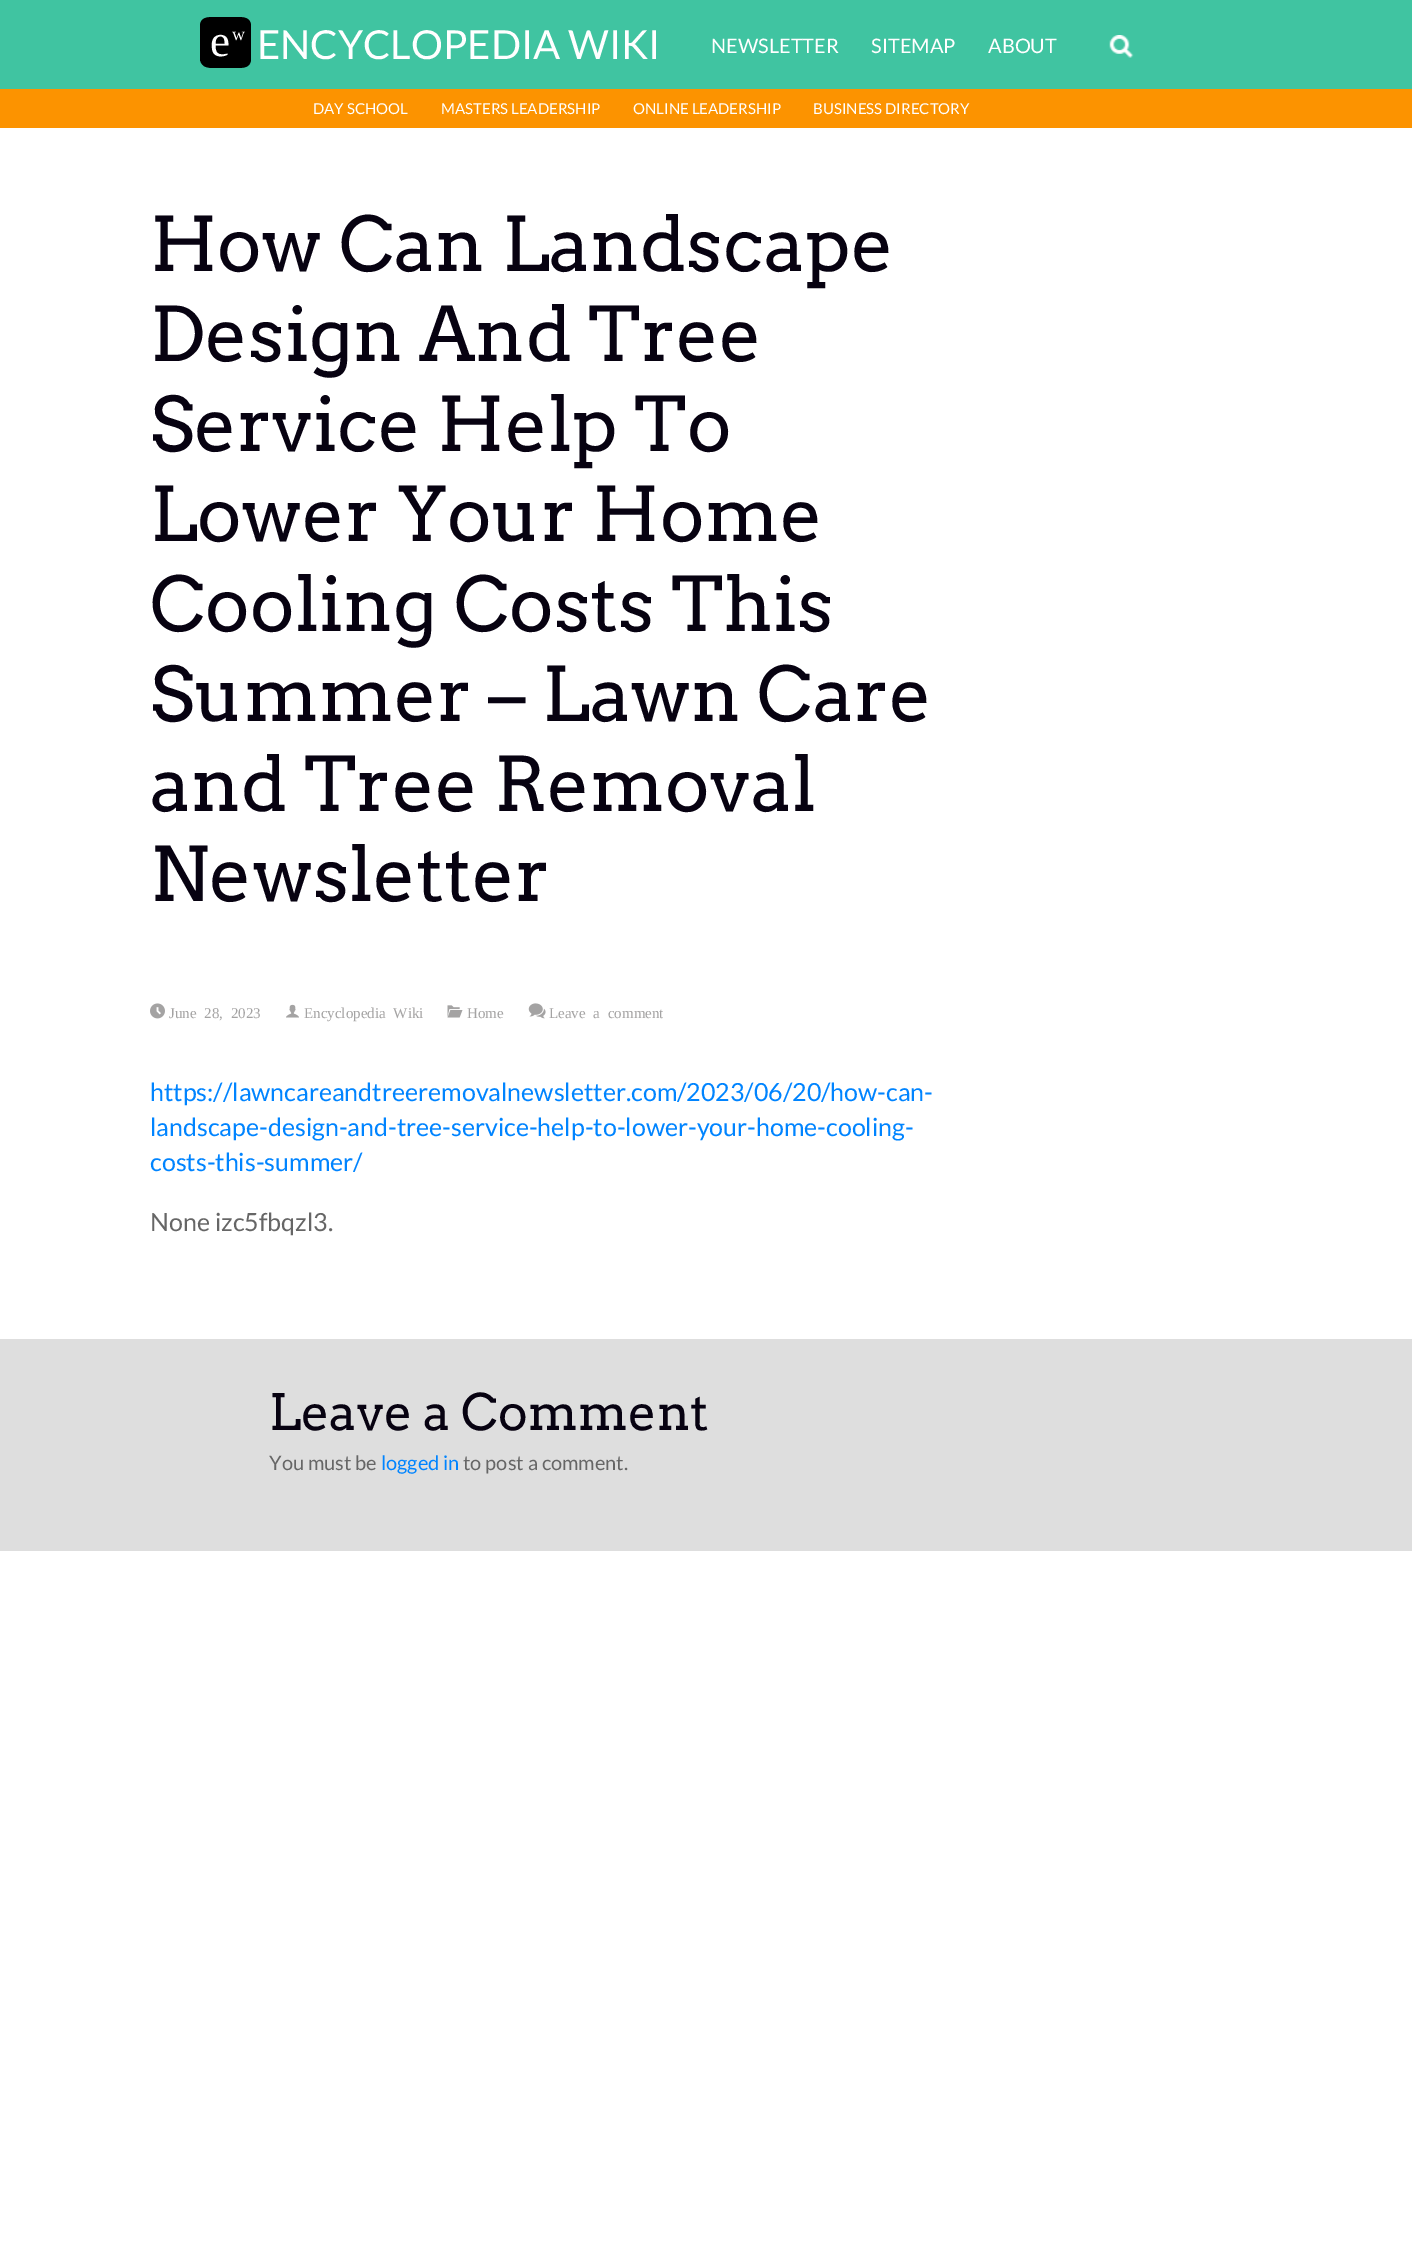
%!PS
<< /PageSize [1412 2253] >> setpagedevice
/rgb { 3 { 255 div 3 1 roll } repeat setrgbcolor } def
/font { [ exch dup neg 0 0 3 -1 roll 0 0 ] selectfont } def
/text { moveto show } def
/picture { 5 dict begin { /h /w /y /x /name } { exch def } forall
  gsave x y translate w h scale
  w h 8 [w 0 0 h 0 0] name (r) file false 3 colorimage grestore end } def
0 2253 translate 1 -1 scale
4 setmiterlimit
255 255 255 rgb
0 0 1412 2253 rectfill
64 196 161 rgb
0 0 1412 89 rectfill
0 0 0 rgb
251 26 moveto 0 34 rlineto -1 8 -8 8 -15 8 rcurveto -21 0 rlineto -6 0 -13 0 -15 -8 rcurveto 0 -34 rlineto 0 -9 8 -9 15 -9 rcurveto 21 0 rlineto 7 0 15 0 15 9 rcurveto closepath fill
(img_01.rgb) 1109 35 25 23 picture
252 147 0 rgb
0 89 1412 39 rectfill
(img_02.rgb) 150 1003 15 16 picture
(img_03.rgb) 286 1004 13 14 picture
(img_04.rgb) 447 1005 16 13 picture
(img_05.rgb) 528 1003 18 16 picture
222 222 222 rgb
0 1339 1412 212 rectfill
/LiberationSerif-Regular 45 font
255 255 255 rgb
(e) 210 56 text
/LiberationSerif-Regular 18 font
(w) 232 40 text
/Lato-Regular 40 font
(ENCYCLOPEDIA WIKI) 257 59 text
/Lato-Regular 20 font
(NEWSLETTER) 711 53 text
(SITEMAP) 871 53 text
(ABOUT) 988 53 text
/Lato-Regular 15 font
(DAY SCHOOL) 313 114 text
(MASTERS LEADERSHIP) 441 114 text
(ONLINE LEADERSHIP) 633 114 text
(BUSINESS DIRECTORY) 813 114 text
/Arvo-Regular 75 font
7 2 17 rgb
(How Can Landscape) 150 271 text
(Design And Tree) 150 361 text
(Service Help To) 150 451 text
(Lower Your Home) 150 541 text
(Cooling Costs This) 150 631 text
(Summer – Lawn Care) 150 721 text
(and Tree Removal) 150 811 text
(Newsletter) 150 901 text
/LiberationSerif-Regular 15 font
164 163 163 rgb
169 1018 moveto 4 0 32 (June 28, 2023) widthshow
304 1018 moveto 4 0 32 (Encyclopedia Wiki) widthshow
(Home) 467 1018 text
549 1018 moveto 4 0 32 (Leave a comment) widthshow
/Lato-Regular 25 font
0 132 255 rgb
(https://lawncareandtreeremovalnewsletter.com/2023/06/20/how-can-) 150 1101 text
(landscape-design-and-tree-service-help-to-lower-your-home-cooling-) 150 1136 text
(costs-this-summer/) 150 1171 text
102 102 102 rgb
(None izc5fbqzl3.) 150 1231 text
/Arvo-Regular 50 font
7 2 17 rgb
(Leave a Comment) 269 1430 text
/Lato-Regular 20 font
102 102 102 rgb
(You must be) 269 1470 text
0 132 255 rgb
(logged in) 381 1470 text
102 102 102 rgb
(to post a comment.) 463 1470 text
showpage
